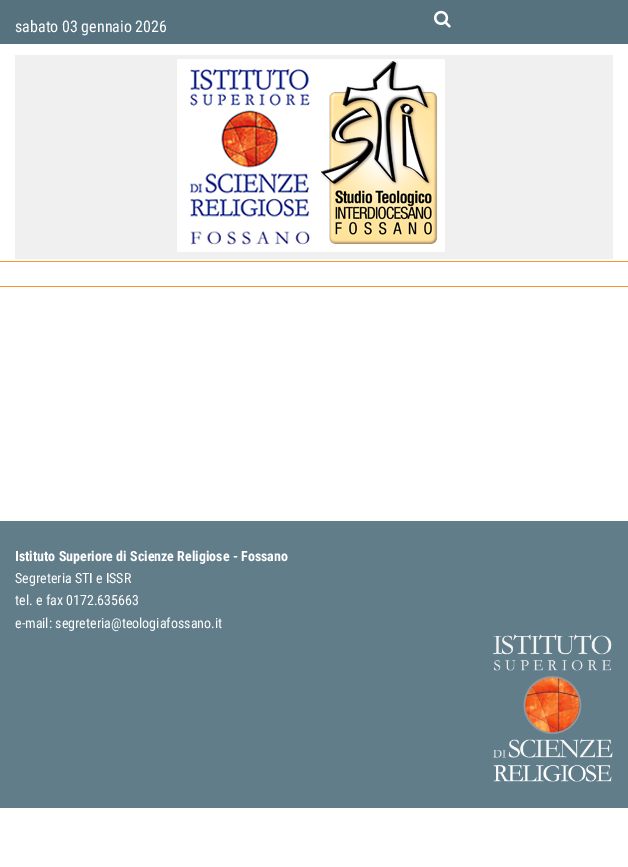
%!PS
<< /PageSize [628 867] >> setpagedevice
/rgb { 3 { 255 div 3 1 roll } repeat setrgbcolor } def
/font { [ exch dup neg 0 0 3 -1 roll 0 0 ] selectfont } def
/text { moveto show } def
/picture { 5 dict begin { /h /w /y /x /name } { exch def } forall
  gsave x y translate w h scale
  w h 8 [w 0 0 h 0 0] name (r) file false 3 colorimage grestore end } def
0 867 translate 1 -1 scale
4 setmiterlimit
255 255 255 rgb
0 0 628 867 rectfill
86 114 127 rgb
0 0 628 44 rectfill
(img_01.rgb) 434 10 17 18 picture
240 240 240 rgb
15 55 598 204 rectfill
(img_02.rgb) 177 59 268 193 picture
253 146 47 rgb
0 261 628 1 rectfill
0 286 628 1 rectfill
97 125 138 rgb
0 521 628 287 rectfill
(img_03.rgb) 493 634 120 148 picture
/RobotoCondensed-Regular 16 font
255 255 255 rgb
(sabato 03 gennaio 2026) 15 32 text
/RobotoCondensed-Bold 14 font
(Istituto Superiore di Scienze Religiose - Fossano) 15 561 text
/RobotoCondensed-Regular 14 font
(Segreteria STI e ISSR) 15 583 text
(tel. e fax 0172.635663) 15 605 text
(e-mail: segreteria@teologiafossano.it) 15 628 text
showpage
